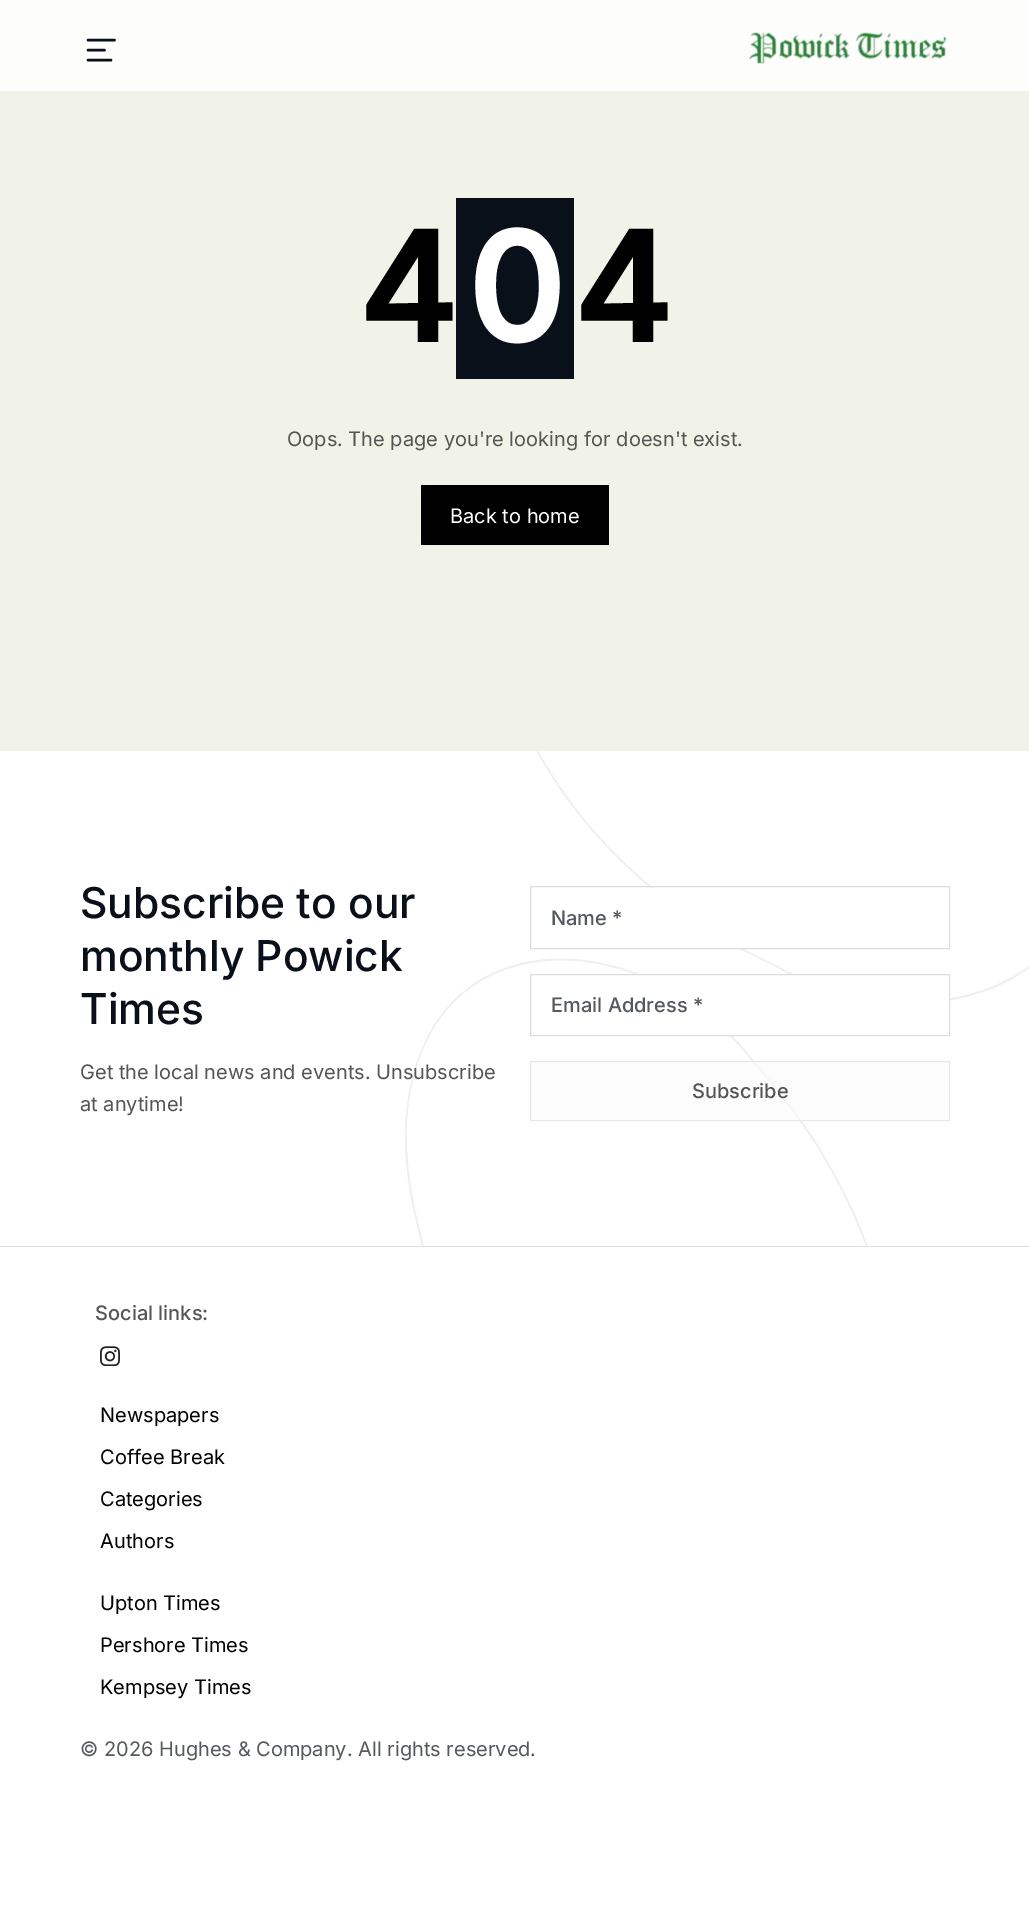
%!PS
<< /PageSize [1029 1921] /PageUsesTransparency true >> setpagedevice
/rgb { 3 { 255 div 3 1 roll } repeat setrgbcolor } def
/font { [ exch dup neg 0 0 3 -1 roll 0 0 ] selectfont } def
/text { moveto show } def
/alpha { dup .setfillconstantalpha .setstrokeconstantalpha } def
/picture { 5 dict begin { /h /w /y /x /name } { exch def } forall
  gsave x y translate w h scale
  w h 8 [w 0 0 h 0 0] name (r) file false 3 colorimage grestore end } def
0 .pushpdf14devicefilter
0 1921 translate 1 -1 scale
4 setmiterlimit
255 255 255 rgb
0 0 1029 1921 rectfill
242 243 232 rgb
0 91 1029 660 rectfill
253 253 252 rgb
0 0 1029 91 rectfill
10 16 26 rgb
2.5 setlinewidth
1 setlinecap
1 setlinejoin
88 40 moveto 26.5 0 rlineto 88 50 moveto 16.5 0 rlineto 88 60 moveto 23 0 rlineto stroke
(img_01.rgb) 749 32 198 32 picture
456 198 118 181 rectfill
0 0 0 rgb
421 485 188 60 rectfill
(img_02.rgb) 404 751 625 497 picture
222 226 230 rgb
0 1246 1029 1 rectfill
255 255 255 rgb
650 888 92 60 rectfill
221 221 221 rgb
1 setlinewidth
0 setlinecap
0 setlinejoin
530.5 886.5 419 62 rectstroke
255 255 255 rgb
637 975 312 60 rectfill
221 221 221 rgb
530.5 974.5 419 61 rectstroke
0.65 alpha
250 250 250 rgb
530 1061 420 60 rectfill
221 221 221 rgb
530.5 1061.5 419 59 rectstroke
1 alpha
(img_03.rgb) 100 1346 20 20 picture
/Inter-Bold 150 font
0 0 0 rgb
(4) 358 342 text
255 255 255 rgb
(0) 467 342 text
0 0 0 rgb
(4) 573 342 text
/Inter-Regular 20 font
85 85 85 rgb
(Oops. The page you're looking for doesn't exist.) 287 446 text
255 255 255 rgb
(Back to home) 450 523 text
/Inter-Medium 42.5 font
10 16 26 rgb
(Subscribe to our) 80 918 text
(monthly Powick) 80 971 text
(Times) 80 1024 text
/Inter-Regular 20 font
85 85 85 rgb
(Get the local news and events. Unsubscribe) 80 1079 text
(at anytime!) 80 1111 text
/Inter-Medium 20 font
84 88 95 rgb
(Name *) 551 925 text
(Email Address *) 551 1012 text
85 85 85 rgb
(Subscribe) 692 1098 text
(Social links:) 95 1320 text
/Inter-Regular 20 font
0 0 0 rgb
(Newspapers) 100 1422 text
(Coffee Break) 100 1464 text
(Categories) 100 1506 text
(Authors) 100 1548 text
(Upton Times) 100 1610 text
(Pershore Times) 100 1652 text
(Kempsey Times) 100 1694 text
84 88 95 rgb
(© 2026 Hughes & Company. All rights reserved.) 80 1756 text
.poppdf14devicefilter showpage
